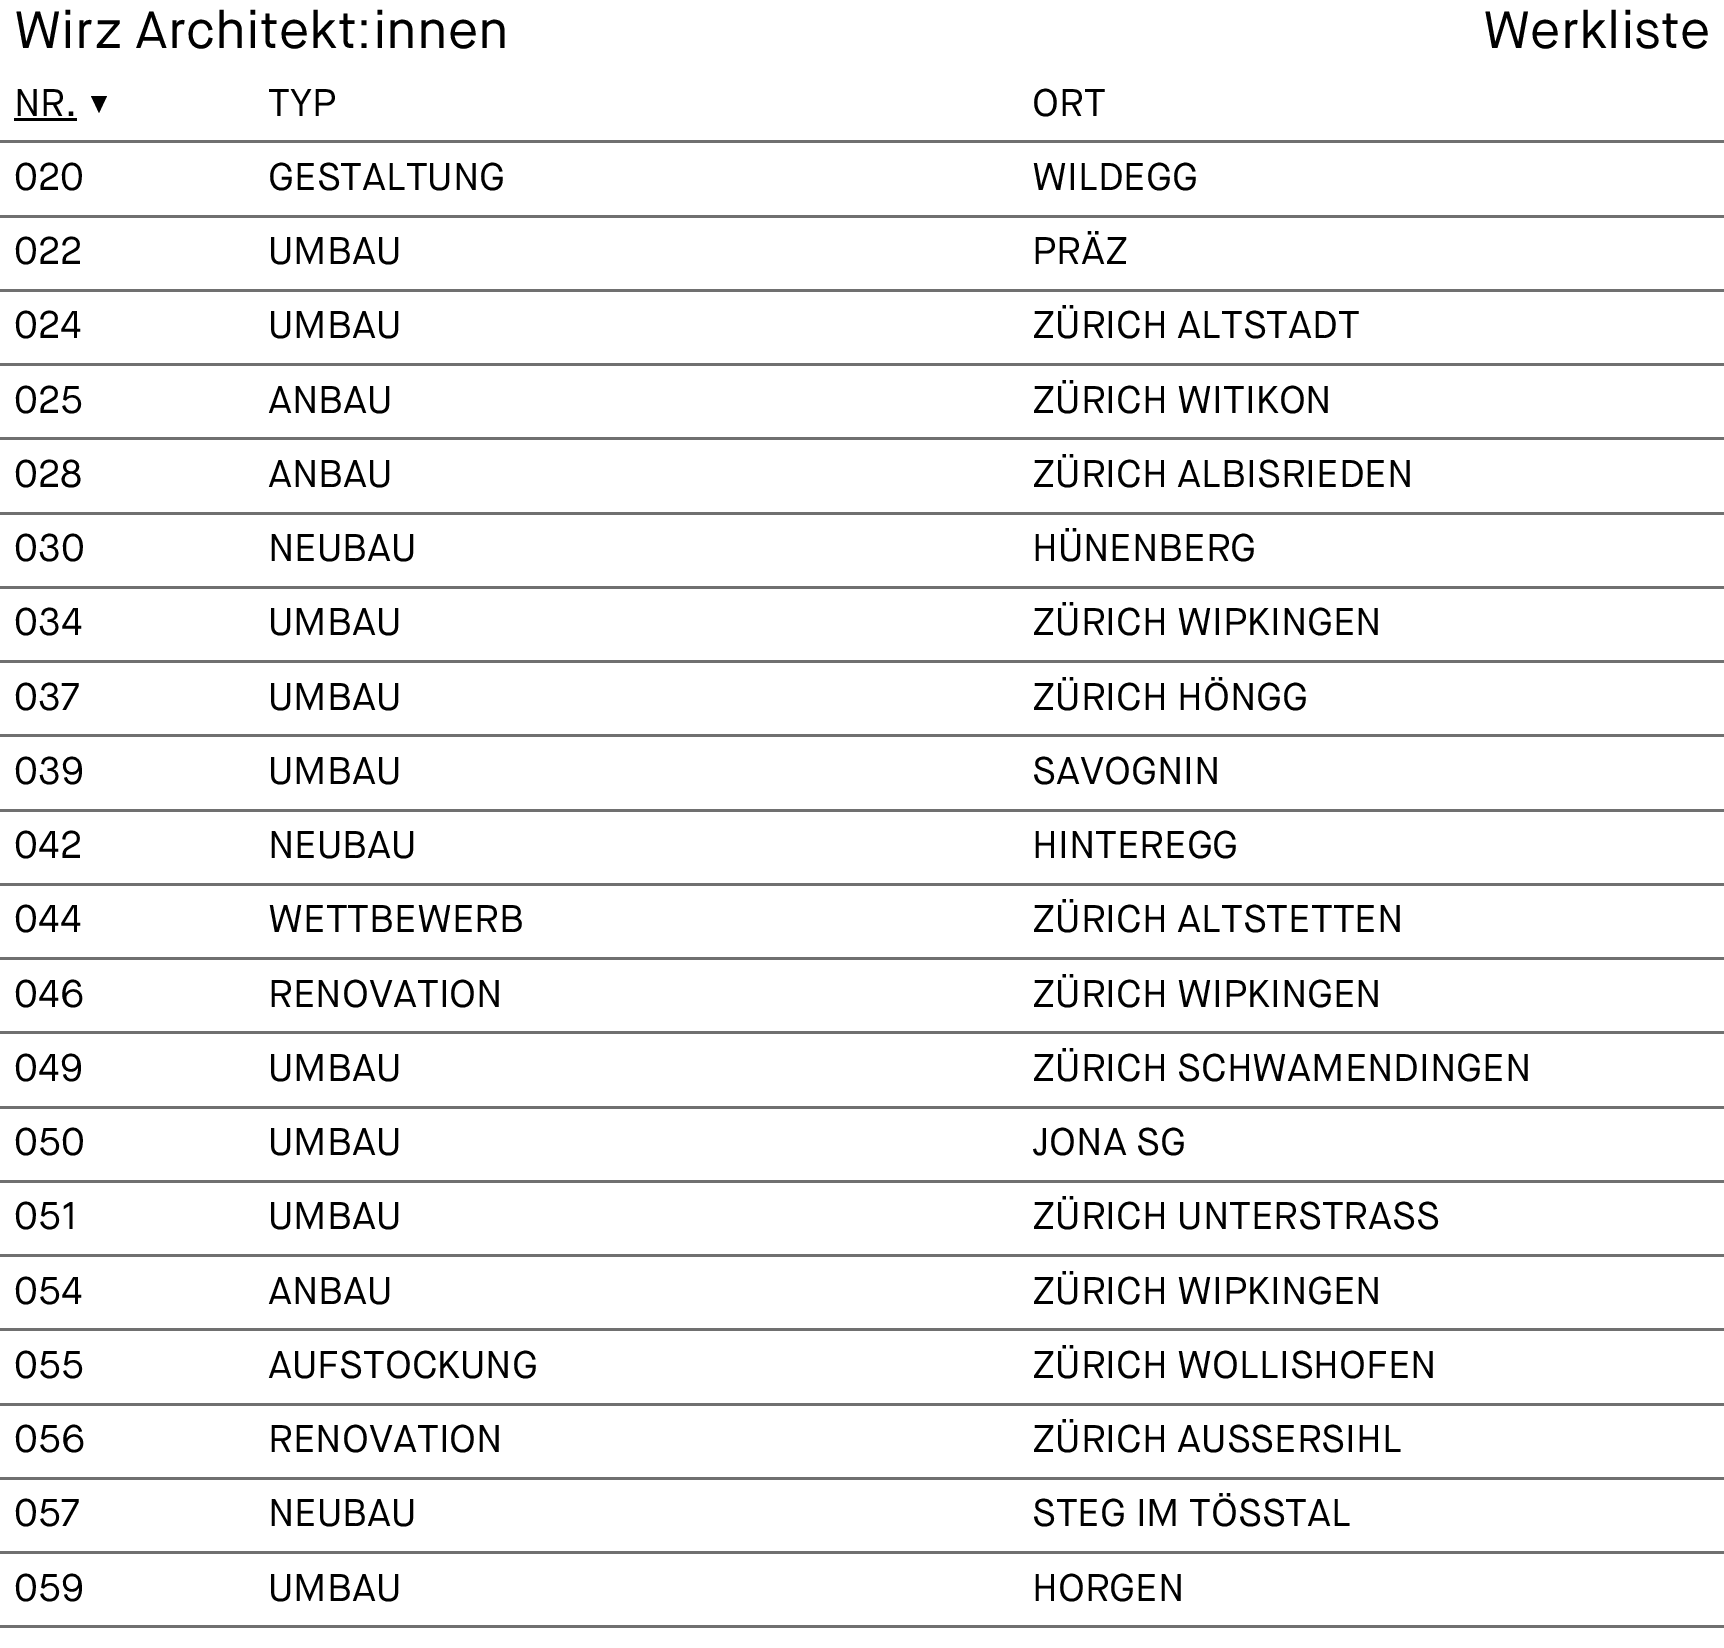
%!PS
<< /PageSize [1724 1648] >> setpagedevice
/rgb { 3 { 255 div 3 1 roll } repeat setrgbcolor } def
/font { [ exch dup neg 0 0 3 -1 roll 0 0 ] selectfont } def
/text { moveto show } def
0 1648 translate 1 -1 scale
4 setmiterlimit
255 255 255 rgb
0 0 1724 1648 rectfill
0 0 0 rgb
14 118 63 3 rectfill
91 96 moveto 16 0 rlineto -8 17 rlineto closepath fill
112 112 112 rgb
0 140 1724 3 rectfill
0 215 1724 3 rectfill
0 289 1724 3 rectfill
0 363 1724 3 rectfill
0 437 1724 3 rectfill
0 512 1724 3 rectfill
0 586 1724 3 rectfill
0 660 1724 3 rectfill
0 734 1724 3 rectfill
0 809 1724 3 rectfill
0 883 1724 3 rectfill
0 957 1724 3 rectfill
0 1031 1724 3 rectfill
0 1106 1724 3 rectfill
0 1180 1724 3 rectfill
0 1254 1724 3 rectfill
0 1328 1724 3 rectfill
0 1403 1724 3 rectfill
0 1477 1724 3 rectfill
0 1551 1724 3 rectfill
0 1625 1724 3 rectfill
/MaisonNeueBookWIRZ-Regular 52.25 font
0 0 0 rgb
(Wirz Architekt:innen) 14 48 text
(Werkliste) 1483 48 text
/MaisonNeueBookWIRZ-Regular 38.5 font
(NR.) 14 116 text
(TYP) 268 116 text
(ORT) 1032 116 text
(020) 14 190 text
(GESTALTUNG) 268 190 text
(WILDEGG) 1032 190 text
(022) 14 264 text
(UMBAU) 268 264 text
(PRÄZ) 1032 264 text
(024) 14 338 text
(UMBAU) 268 338 text
(ZÜRICH ALTSTADT) 1032 338 text
(025) 14 413 text
(ANBAU) 268 413 text
(ZÜRICH WITIKON) 1032 413 text
(028) 14 487 text
(ANBAU) 268 487 text
(ZÜRICH ALBISRIEDEN) 1032 487 text
(030) 14 561 text
(NEUBAU) 268 561 text
(HÜNENBERG) 1032 561 text
(034) 14 635 text
(UMBAU) 268 635 text
(ZÜRICH WIPKINGEN) 1032 635 text
(037) 14 710 text
(UMBAU) 268 710 text
(ZÜRICH HÖNGG) 1032 710 text
(039) 14 784 text
(UMBAU) 268 784 text
(SAVOGNIN) 1032 784 text
(042) 14 858 text
(NEUBAU) 268 858 text
(HINTEREGG) 1032 858 text
(044) 14 932 text
(WETTBEWERB) 268 932 text
(ZÜRICH ALTSTETTEN) 1032 932 text
(046) 14 1007 text
(RENOVATION) 268 1007 text
(ZÜRICH WIPKINGEN) 1032 1007 text
(049) 14 1081 text
(UMBAU) 268 1081 text
(ZÜRICH SCHWAMENDINGEN) 1032 1081 text
(050) 14 1155 text
(UMBAU) 268 1155 text
(JONA SG) 1032 1155 text
(051) 14 1229 text
(UMBAU) 268 1229 text
(ZÜRICH UNTERSTRASS) 1032 1229 text
(054) 14 1304 text
(ANBAU) 268 1304 text
(ZÜRICH WIPKINGEN) 1032 1304 text
(055) 14 1378 text
(AUFSTOCKUNG) 268 1378 text
(ZÜRICH WOLLISHOFEN) 1032 1378 text
(056) 14 1452 text
(RENOVATION) 268 1452 text
(ZÜRICH AUSSERSIHL) 1032 1452 text
(057) 14 1526 text
(NEUBAU) 268 1526 text
(STEG IM TÖSSTAL) 1032 1526 text
(059) 14 1601 text
(UMBAU) 268 1601 text
(HORGEN) 1032 1601 text
showpage
